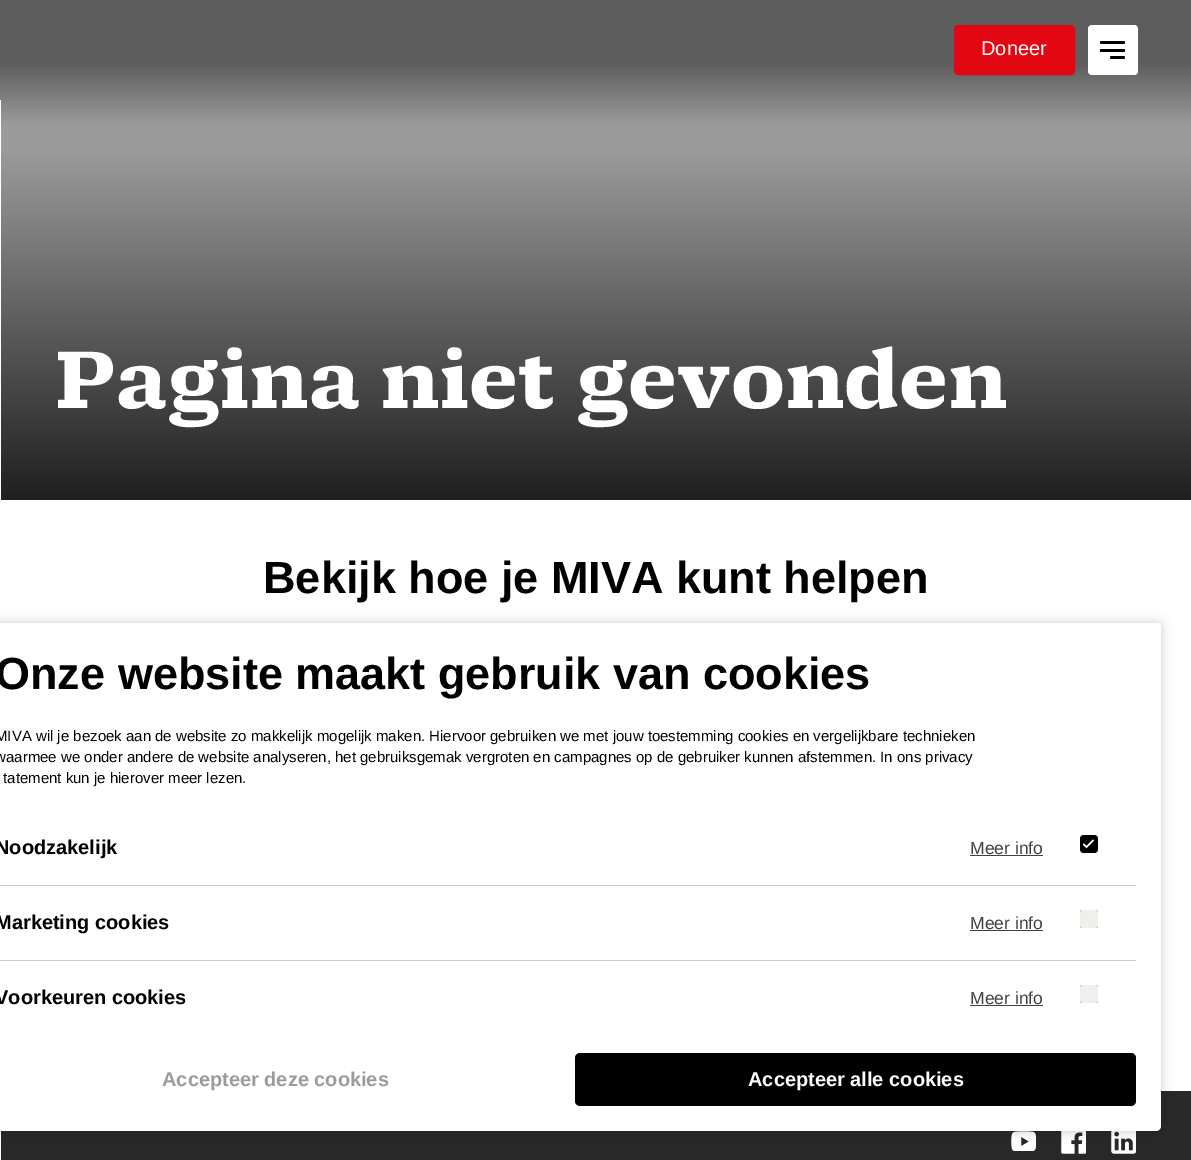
%!PS
<< /PageSize [1191 1160] /PageUsesTransparency true >> setpagedevice
/rgb { 3 { 255 div 3 1 roll } repeat setrgbcolor } def
/font { [ exch dup neg 0 0 3 -1 roll 0 0 ] selectfont } def
/text { moveto show } def
/alpha { dup .setfillconstantalpha .setstrokeconstantalpha } def
/roundrect { 5 dict begin { /r /h /w /y /x } { exch def } forall
  x r add y moveto x w add y 2 copy h add r arct x w add y h add x 1 index r arct
  x y h add x y r arct x y 2 copy exch w add exch r arct closepath end } def
/shadow { 12 dict begin { /a /b /q /h /w /y /x } { exch def } forall gsave /was 0 def
  9 -2 -9 { dup b mul 4 div /e exch def 1 sub .425 mul 2.718 exch exp 1 add a .99 .min exch div /now exch def
    1 1 now sub 1 was sub div sub alpha /was now def
    w h .min e 2 mul add 0 gt { x e sub y e sub w e 2 mul add h e 2 mul add
      q e add b .6 mul add w h .min 2 div e add .min 0 .max roundrect fill } if } for grestore end } def
/picture { 5 dict begin { /h /w /y /x /name } { exch def } forall
  gsave x y translate w h scale
  w h 8 [w 0 0 h 0 0] name (r) file false 3 colorimage grestore end } def
0 .pushpdf14devicefilter
0 1160 translate 1 -1 scale
4 setmiterlimit
255 255 255 rgb
0 0 1191 1160 rectfill
gsave 0 0 moveto 1191 0 rlineto 0 125 rlineto -1191 0 rlineto closepath clip newpath
<< /ShadingType 2 /ColorSpace /DeviceRGB /Coords [596 0 596 125] /Extend [true true] /Function << /FunctionType 3 /Domain [0 1] /Functions [<< /FunctionType 2 /Domain [0 1] /C0 [0.365 0.365 0.365] /C1 [0.365 0.365 0.365] /N 1 >> << /FunctionType 2 /Domain [0 1] /C0 [0.365 0.365 0.365] /C1 [0.608 0.608 0.608] /N 1 >>] /Bounds [0.5] /Encode [0 1 0 1] >> >> shfill grestore
227 6 19 rgb
955.5 26.5 118 47 2.5 roundrect gsave fill grestore
3 setlinewidth
stroke
255 255 255 rgb
1088 25 50 50 4 roundrect fill
0 0 0 rgb
1100 49 25 3 rectfill
1100 41 25 3 1.5 roundrect fill
1110 56 15 3 1.5 roundrect fill
255 255 255 rgb
0 100 1 25 rectfill
gsave 1 125 moveto 1190 0 rlineto 0 375 rlineto -1190 0 rlineto closepath clip newpath
<< /ShadingType 2 /ColorSpace /DeviceRGB /Coords [596 500 596 0] /Extend [true true] /Function << /FunctionType 3 /Domain [0 1] /Functions [<< /FunctionType 2 /Domain [0 1] /C0 [0.122 0.122 0.122] /C1 [0.608 0.608 0.608] /N 1 >> << /FunctionType 2 /Domain [0 1] /C0 [0.608 0.608 0.608] /C1 [0.608 0.608 0.608] /N 1 >>] /Bounds [0.7] /Encode [0 1 0 1] >> >> shfill grestore
40 40 40 rgb
1 1091 1190 69 rectfill
(img_01.rgb) 1011 1131 25 20 picture
(img_02.rgb) 1061 1131 25 23 picture
(img_03.rgb) 1111 1131 25 23 picture
0 0 0 rgb
-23 623 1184 508 5 6 0.2 shadow
255 255 255 rgb
-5 623 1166 508 5 roundrect fill
204 204 204 rgb
0 885 1136 1 rectfill
64 64 64 rgb
970 855 73 1 rectfill
227 227 227 rgb
1094 835 4 18 rectfill
1080 835 moveto 9 0 rlineto 5 0 9 4 9 9 rcurveto 0 5 -4 9 -9 9 rcurveto -9 0 rlineto closepath fill
0 0 0 rgb
1080 835 18 18 4 roundrect fill
(img_04.rgb) 1083 839 12 10 picture
204 204 204 rgb
0 960 1136 1 rectfill
64 64 64 rgb
970 930 73 1 rectfill
204 204 204 rgb
1094 910 4 18 rectfill
1080 910 moveto 9 0 rlineto 5 0 9 4 9 9 rcurveto 0 5 -4 9 -9 9 rcurveto -9 0 rlineto closepath fill
240 239 235 rgb
1080 910 18 18 4 roundrect fill
64 64 64 rgb
970 1005 73 1 rectfill
204 204 204 rgb
1094 985 4 18 rectfill
1080 985 moveto 9 0 rlineto 5 0 9 4 9 9 rcurveto 0 5 -4 9 -9 9 rcurveto -9 0 rlineto closepath fill
240 239 235 rgb
1080 985 18 18 4 roundrect fill
0 0 0 rgb
575 1053 561 53 5 roundrect fill
/LiberationSans-Regular 20 font
255 255 255 rgb
(Doneer) 981 55 text
/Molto-Bold 80 font
(Pagina niet gevonden) 55 408 text
/LiberationSans-Bold 45 font
0 0 0 rgb
(Bekijk hoe je MIVA kunt helpen) 263 593 text
(Onze website maakt gebruik van cookies) -5 689 text
/LiberationSans-Regular 15 font
(MIVA wil je bezoek aan de website zo makkelijk mogelijk maken. Hiervoor gebruiken we met jouw toestemming cookies en vergelijkbare technieken) -5 741 text
(waarmee we onder andere de website analyseren, het gebruiksgemak vergroten en campagnes op de gebruiker kunnen afstemmen. In ons privacy) -5 762 text
(tatement kun je hierover meer lezen.) 3 783 text
/LiberationSans-Bold 20 font
(Noodzakelijk) -5 854 text
/LiberationSans-Regular 17.5 font
64 64 64 rgb
(Meer info) 970 854 text
/LiberationSans-Bold 20 font
0 0 0 rgb
(Marketing cookies) -5 929 text
/LiberationSans-Regular 17.5 font
64 64 64 rgb
(Meer info) 970 929 text
/LiberationSans-Bold 20 font
0 0 0 rgb
(Voorkeuren cookies) -5 1004 text
/LiberationSans-Regular 17.5 font
64 64 64 rgb
(Meer info) 970 1004 text
/LiberationSans-Bold 20 font
155 155 155 rgb
(Accepteer deze cookies) 162 1086 text
255 255 255 rgb
(Accepteer alle cookies) 748 1086 text
.poppdf14devicefilter showpage
